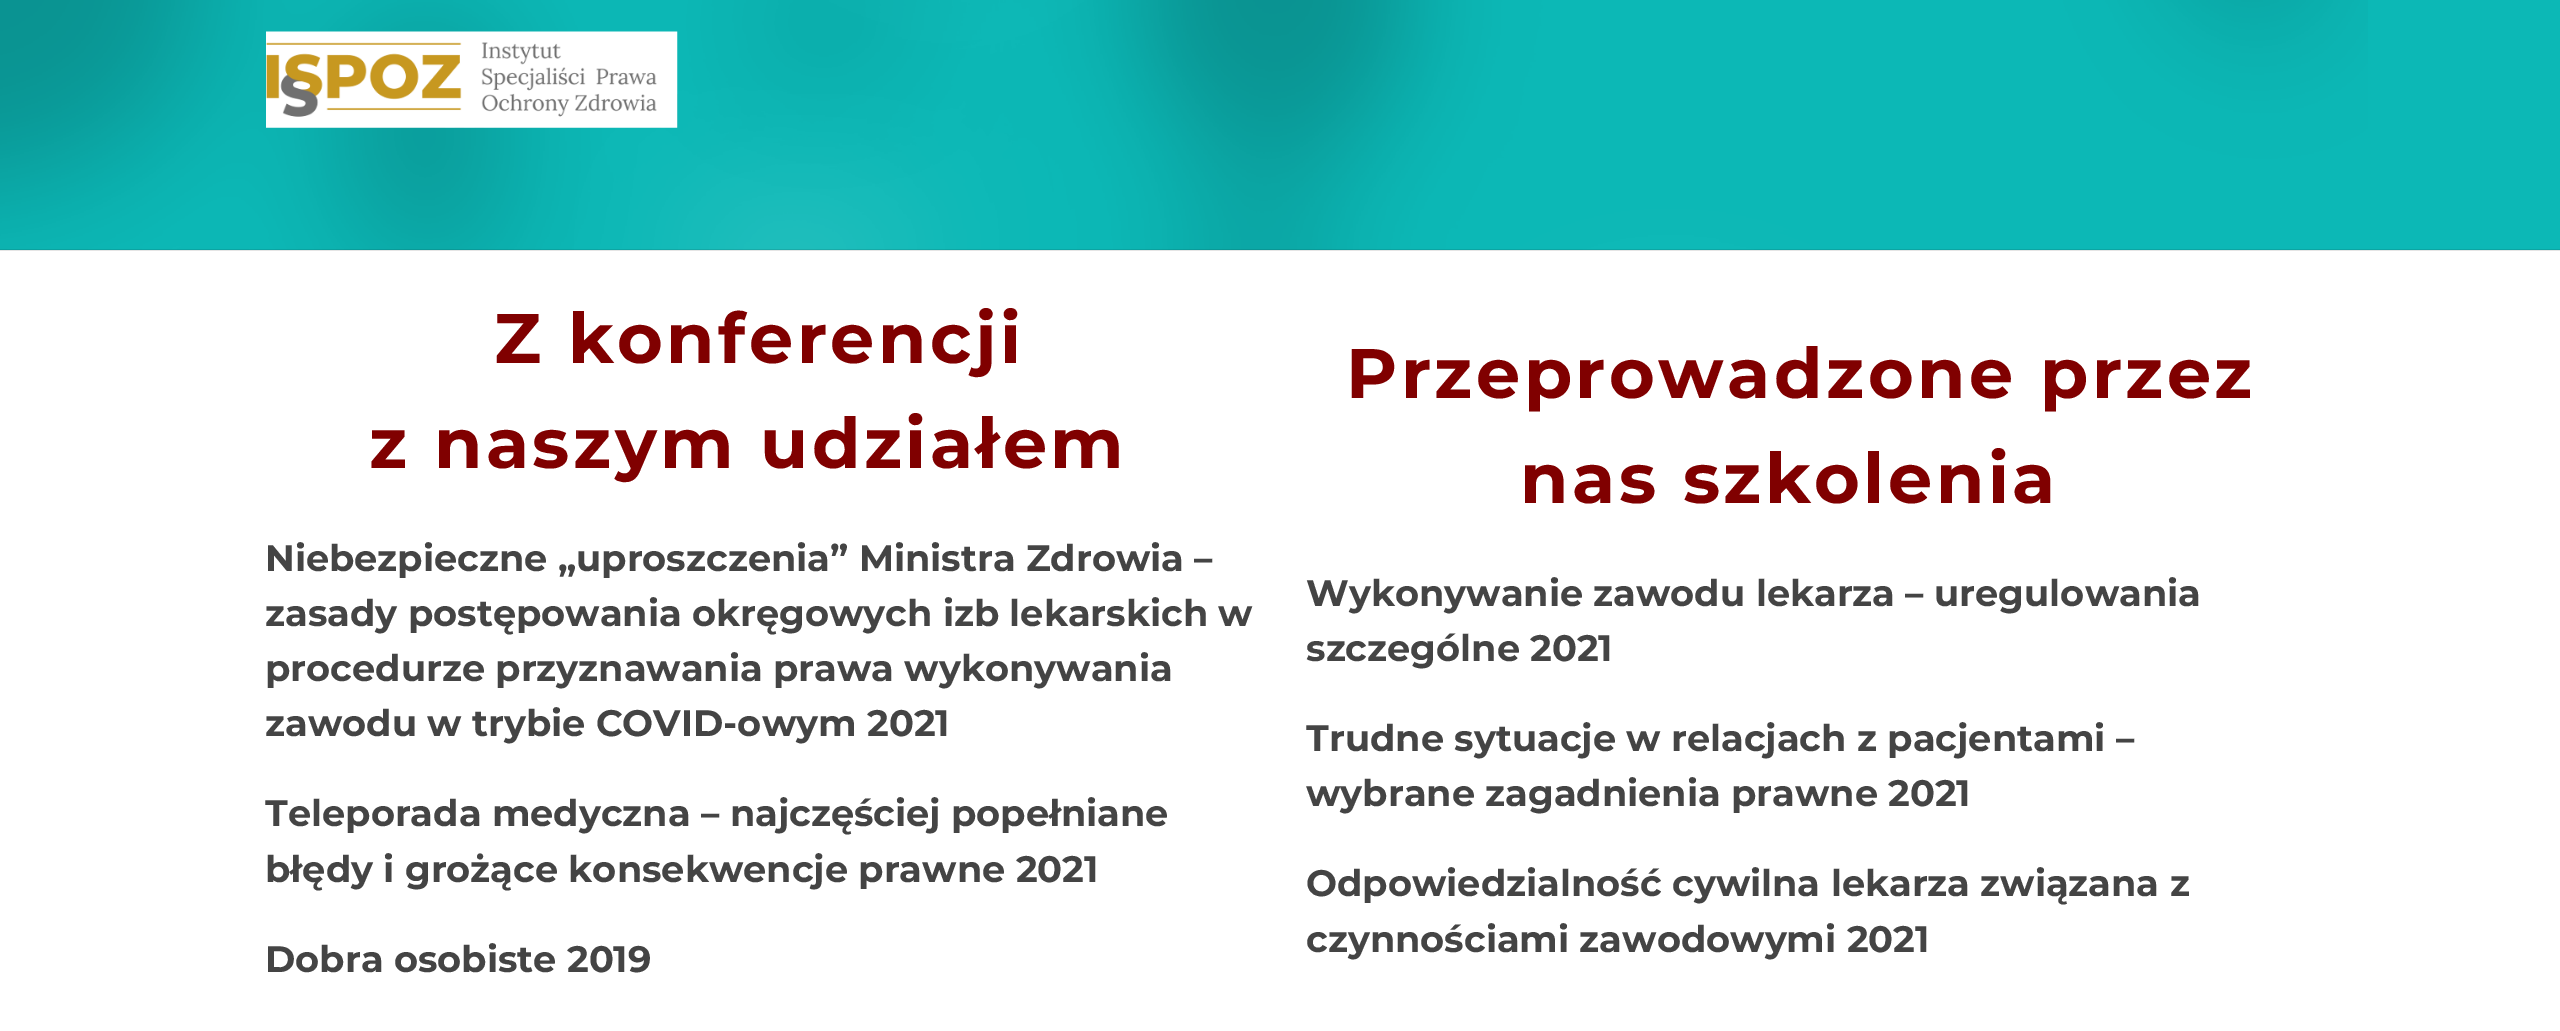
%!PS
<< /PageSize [2560 1031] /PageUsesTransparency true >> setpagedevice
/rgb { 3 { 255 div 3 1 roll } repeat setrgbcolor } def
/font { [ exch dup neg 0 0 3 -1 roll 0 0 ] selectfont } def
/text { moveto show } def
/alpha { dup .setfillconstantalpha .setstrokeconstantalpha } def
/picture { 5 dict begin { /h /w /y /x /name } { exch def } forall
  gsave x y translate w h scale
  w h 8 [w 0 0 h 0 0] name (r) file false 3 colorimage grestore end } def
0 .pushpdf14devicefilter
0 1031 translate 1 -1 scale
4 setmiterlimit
255 255 255 rgb
0 0 2560 1031 rectfill
12 184 182 rgb
0 0 2560 250 rectfill
(img_02.rgb) 0 0 2368 250 picture
(img_01.rgb) 266 31 412 97 picture
0.1 alpha
0 0 0 rgb
0 249 2560 2 rectfill
/Montserrat-Bold 70 font
1 alpha
128 0 0 rgb
494 363 moveto 3.5 0 (Z konferencji) ashow
369 468 moveto 3.5 0 (z naszym udziałem) ashow
/Montserrat-Bold 36.75 font
68 68 68 rgb
(Niebezpieczne „uproszczenia” Ministra Zdrowia –) 265 571 text
(zasady postępowania okręgowych izb lekarskich w) 265 626 text
(procedurze przyznawania prawa wykonywania) 265 681 text
(zawodu w trybie COVID-owym 2021) 265 736 text
(Teleporada medyczna – najczęściej popełniane) 265 826 text
(błędy i grożące konsekwencje prawne 2021) 265 882 text
(Dobra osobiste 2019) 265 972 text
/Montserrat-Bold 70 font
128 0 0 rgb
1346 398 moveto 3.5 0 (Przeprowadzone przez) ashow
1520 503 moveto 3.5 0 (nas szkolenia) ashow
/Montserrat-Bold 36.75 font
68 68 68 rgb
(Wykonywanie zawodu lekarza – uregulowania) 1306 606 text
(szczególne 2021) 1306 661 text
(Trudne sytuacje w relacjach z pacjentami –) 1306 751 text
(wybrane zagadnienia prawne 2021) 1306 806 text
(Odpowiedzialność cywilna lekarza związana z) 1306 896 text
(czynnościami zawodowymi 2021) 1306 952 text
.poppdf14devicefilter showpage
